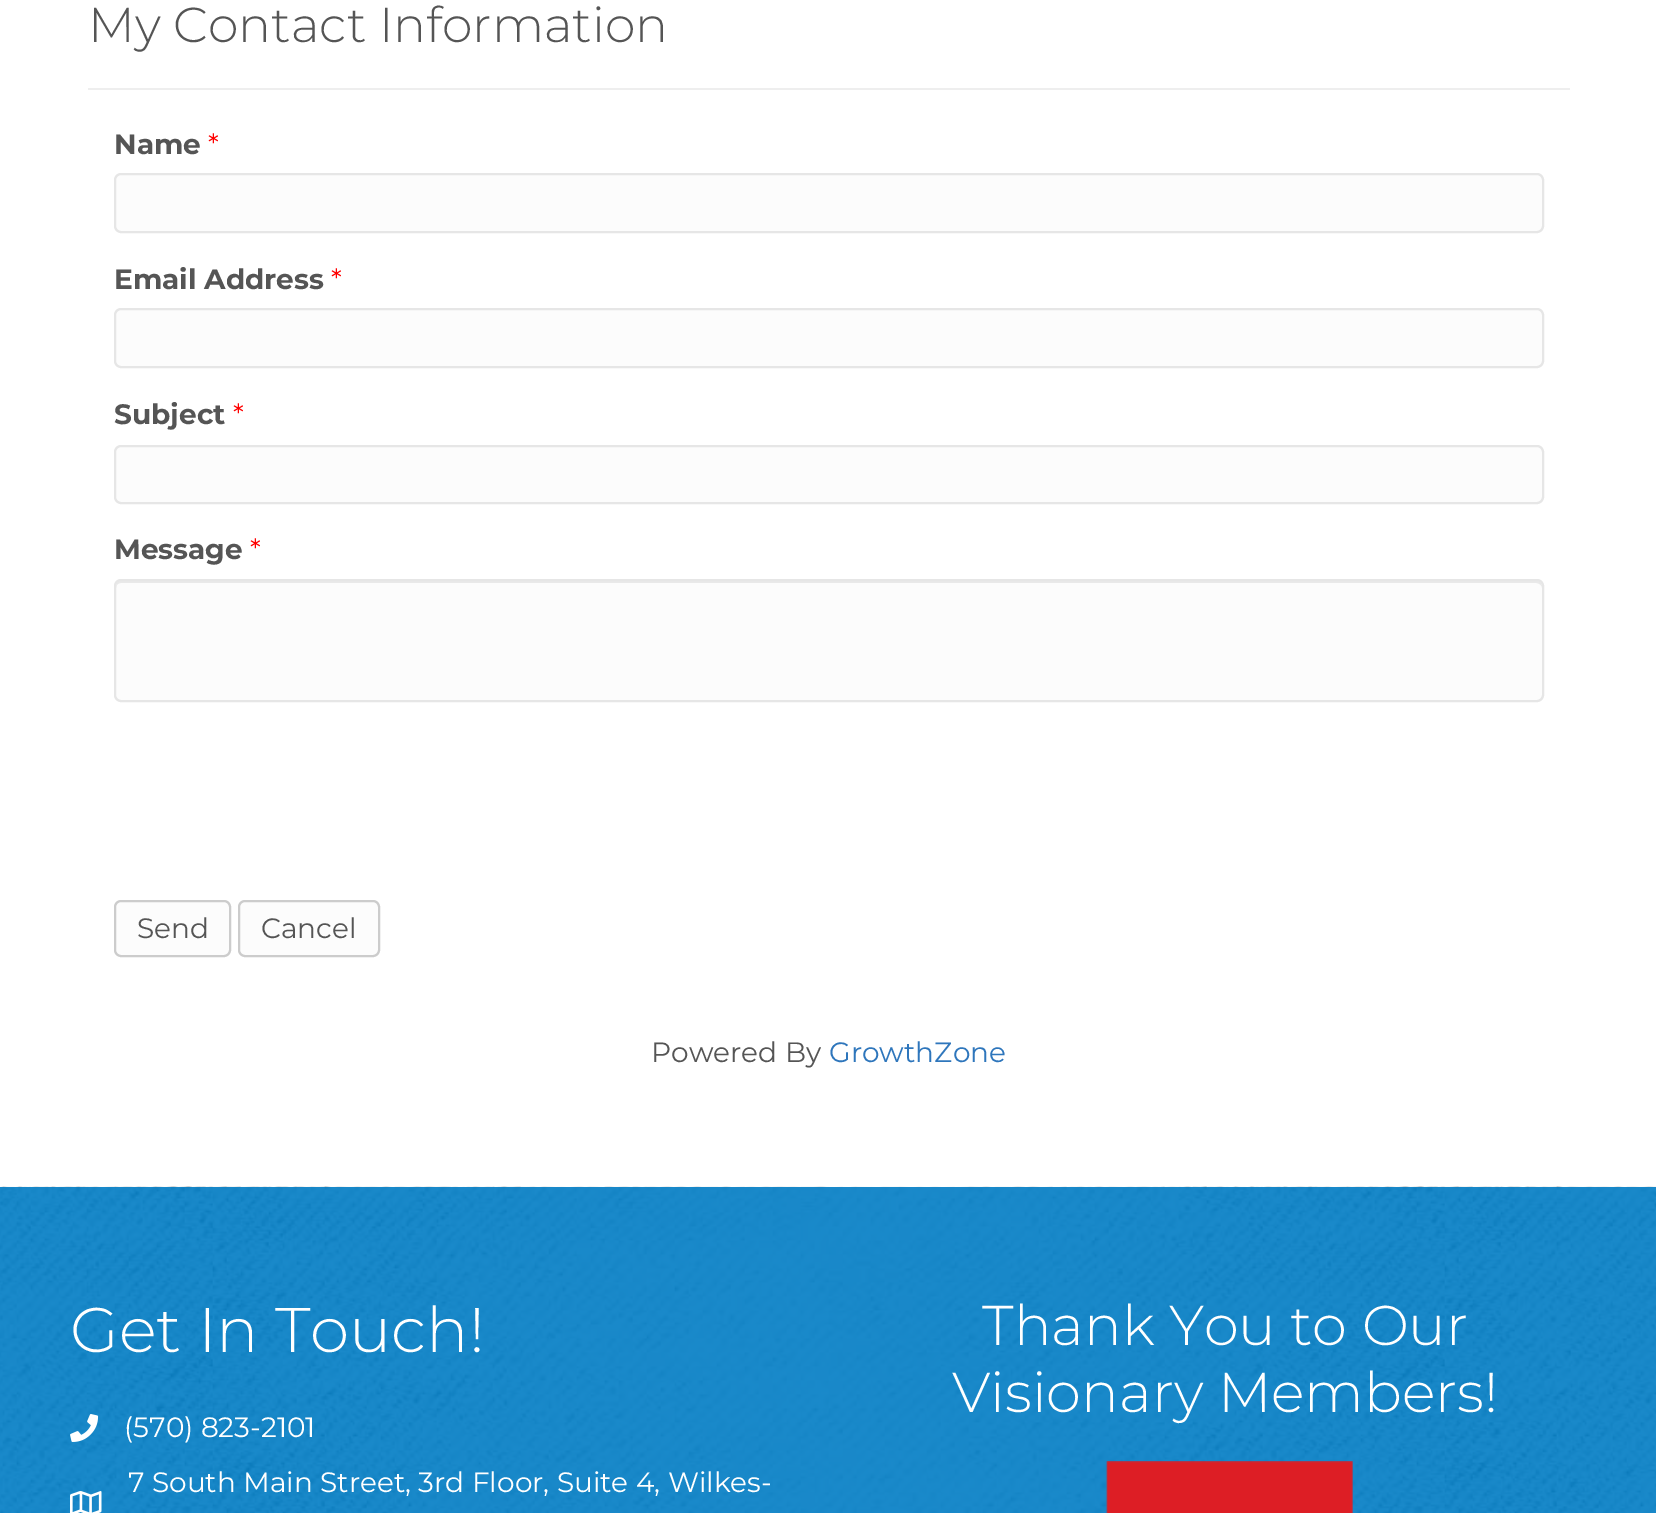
%!PS
<< /PageSize [1656 1513] >> setpagedevice
/rgb { 3 { 255 div 3 1 roll } repeat setrgbcolor } def
/font { [ exch dup neg 0 0 3 -1 roll 0 0 ] selectfont } def
/text { moveto show } def
/roundrect { 5 dict begin { /r /h /w /y /x } { exch def } forall
  x r add y moveto x w add y 2 copy h add r arct x w add y h add x 1 index r arct
  x y h add x y r arct x y 2 copy exch w add exch r arct closepath end } def
/picture { 5 dict begin { /h /w /y /x /name } { exch def } forall
  gsave x y translate w h scale
  w h 8 [w 0 0 h 0 0] name (r) file false 3 colorimage grestore end } def
0 1513 translate 1 -1 scale
4 setmiterlimit
255 255 255 rgb
0 0 1656 1513 rectfill
238 238 238 rgb
88 88 1482 2 rectfill
252 252 252 rgb
115 174 1428 58 6 roundrect gsave fill grestore
230 230 230 rgb
2 setlinewidth
stroke
252 252 252 rgb
115 309 1428 58 6 roundrect gsave fill grestore
230 230 230 rgb
stroke
252 252 252 rgb
115 446 1428 57 6 roundrect gsave fill grestore
230 230 230 rgb
stroke
252 252 252 rgb
114 579 1430 123 7 roundrect fill
233 233 233 rgb
121 583 moveto 1415 0 rlineto 3 0 6 2 6 5 rcurveto 0 -3 -1 -7 -5 -7 rcurveto -1416 0 rlineto -4 0 -5 4 -5 7 rcurveto 0 -3 2 -5 5 -5 rcurveto closepath fill
230 230 230 rgb
115 580 1428 121 6 roundrect stroke
252 252 252 rgb
115 901 115 55 6 roundrect gsave fill grestore
204 204 204 rgb
stroke
252 252 252 rgb
239 901 140 55 6 roundrect gsave fill grestore
204 204 204 rgb
stroke
(img_01.rgb) 0 1186 1656 327 picture
(img_02.rgb) 70 1414 29 28 picture
(img_03.rgb) 70 1491 32 22 picture
(img_04.rgb) 1105 1461 248 52 picture
/Montserrat-Light 49 font
85 85 85 rgb
(My Contact Information) 88 42 text
/Montserrat-Bold 28 font
(Name) 114 154 text
/Montserrat-Regular 28 font
255 0 0 rgb
(*) 208 154 text
/Montserrat-Bold 28 font
85 85 85 rgb
(Email Address) 114 289 text
/Montserrat-Regular 28 font
255 0 0 rgb
(*) 331 289 text
/Montserrat-Bold 28 font
85 85 85 rgb
(Subject) 114 424 text
/Montserrat-Regular 28 font
255 0 0 rgb
(*) 233 424 text
/Montserrat-Bold 28 font
85 85 85 rgb
(Message) 114 559 text
/Montserrat-Regular 28 font
255 0 0 rgb
(*) 250 559 text
85 85 85 rgb
(Send) 137 938 text
(Cancel) 261 938 text
(Powered By) 651 1062 text
46 118 188 rgb
(GrowthZone) 829 1062 text
/Montserrat-Light 63 font
255 255 255 rgb
(Get In Touch!) 70 1352 text
/Montserrat-Regular 28 font
(\(570\) 823-2101) 124 1437 text
(7 South Main Street, 3rd Floor, Suite 4, Wilkes-) 128 1492 text
/Montserrat-Light 56 font
(Thank You to Our) 982 1345 text
(Visionary Members!) 952 1412 text
showpage
